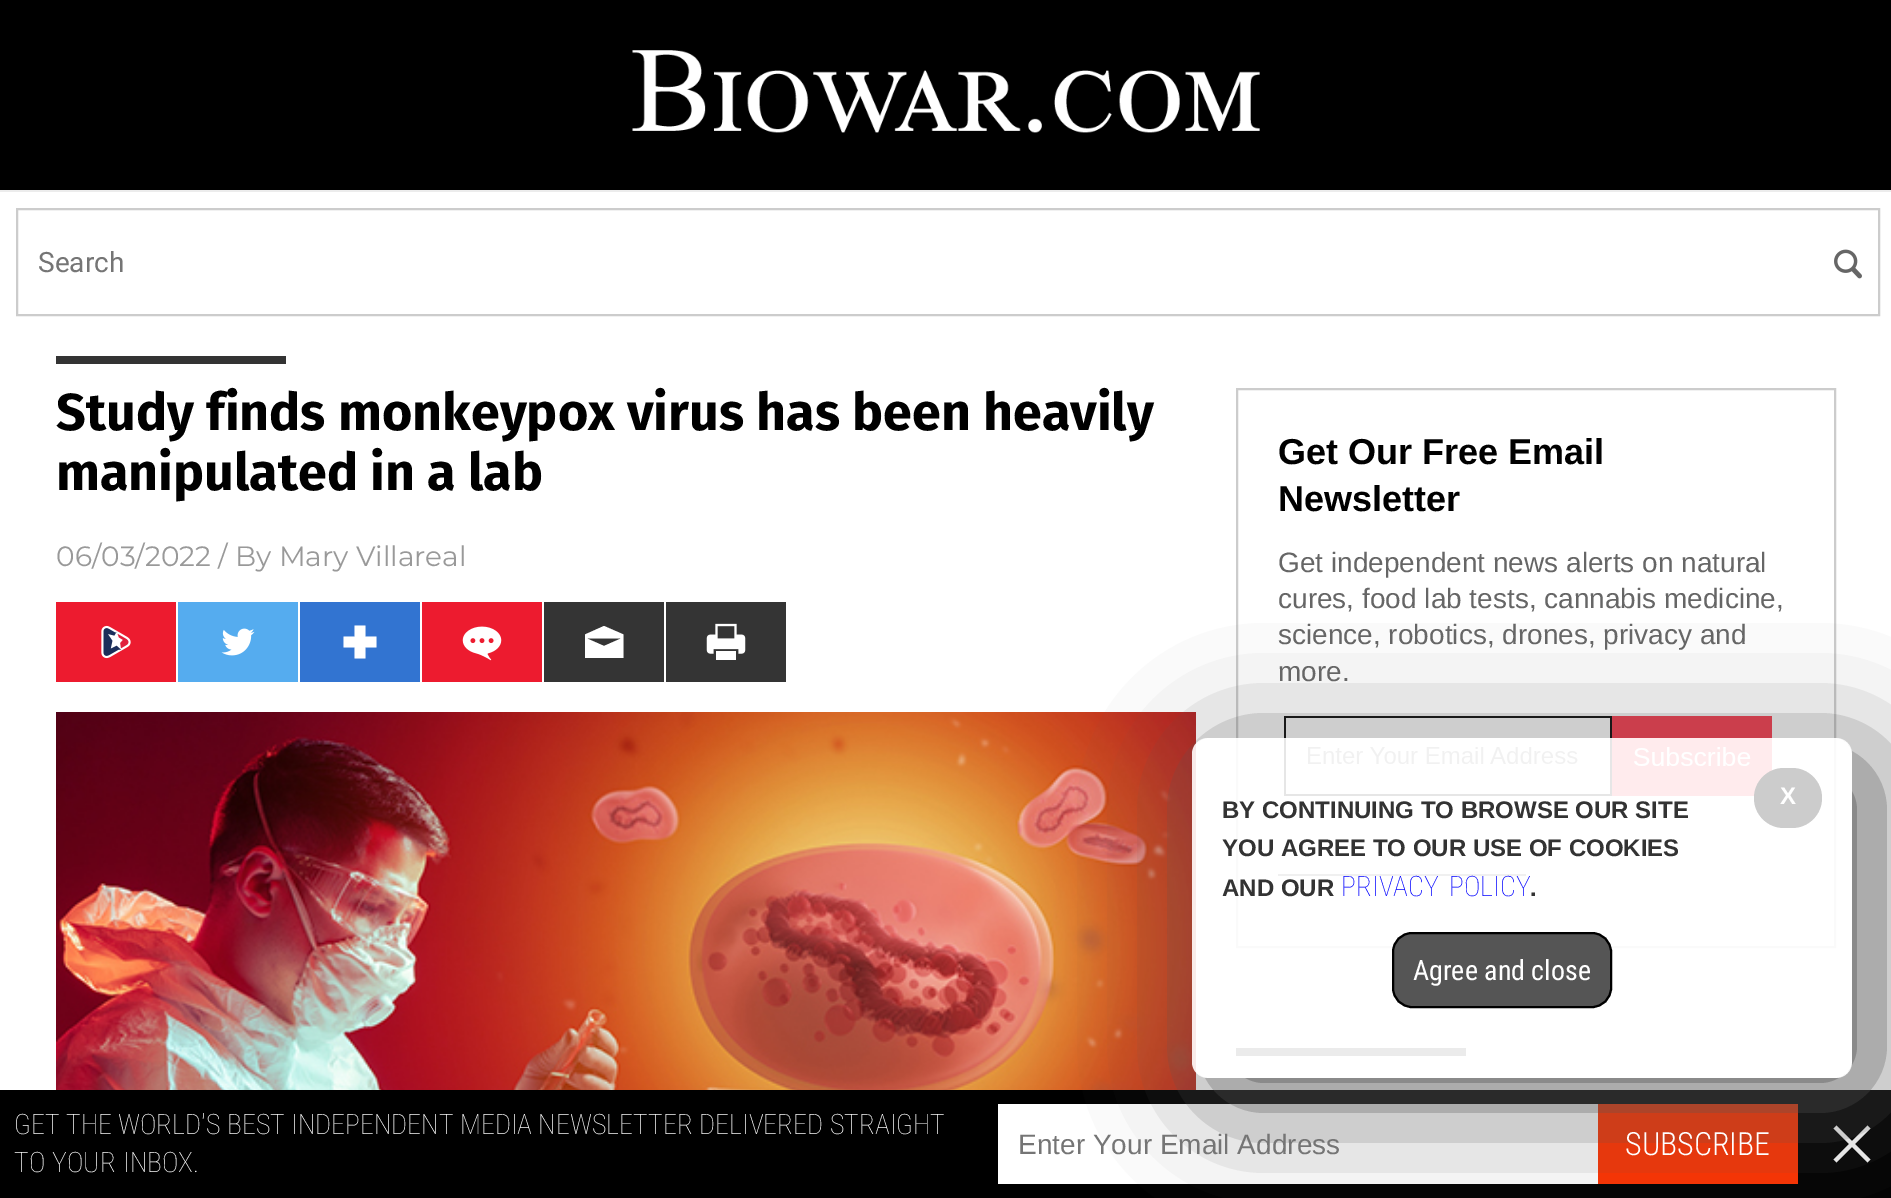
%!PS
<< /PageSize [1891 1198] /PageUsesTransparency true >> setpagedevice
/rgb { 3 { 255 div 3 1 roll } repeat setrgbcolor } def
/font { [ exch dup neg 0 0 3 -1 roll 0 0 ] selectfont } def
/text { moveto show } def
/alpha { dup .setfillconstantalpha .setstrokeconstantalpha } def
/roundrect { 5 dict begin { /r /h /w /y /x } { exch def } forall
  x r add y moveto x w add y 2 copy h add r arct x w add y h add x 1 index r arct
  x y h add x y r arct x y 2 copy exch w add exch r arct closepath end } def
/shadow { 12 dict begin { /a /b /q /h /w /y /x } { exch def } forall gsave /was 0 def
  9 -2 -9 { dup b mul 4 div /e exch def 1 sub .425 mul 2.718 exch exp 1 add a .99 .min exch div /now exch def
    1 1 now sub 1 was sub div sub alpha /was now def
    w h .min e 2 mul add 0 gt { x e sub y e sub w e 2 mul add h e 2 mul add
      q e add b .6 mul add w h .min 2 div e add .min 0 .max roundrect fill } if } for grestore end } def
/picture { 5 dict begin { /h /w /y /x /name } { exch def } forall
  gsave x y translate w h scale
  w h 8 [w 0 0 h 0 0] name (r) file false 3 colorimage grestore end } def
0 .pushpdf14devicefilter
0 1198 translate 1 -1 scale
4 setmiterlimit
0 0 0 rgb
0 0 1891 1198 rectfill
(img_01.rgb) 632 50 628 83 picture
255 255 255 rgb
0 192 1891 898 rectfill
236 236 236 rgb
0 190 1891 2 rectfill
204 204 204 rgb
2 setlinewidth
17 209 1862 106 rectstroke
(img_02.rgb) 1834 249 28 30 picture
51 51 51 rgb
56 356 230 8 rectfill
237 27 47 rgb
56 602 120 80 rectfill
(img_03.rgb) 101 625 30 34 picture
85 172 239 rgb
178 602 120 80 rectfill
(img_04.rgb) 221 628 34 28 picture
50 116 209 rgb
300 602 120 80 rectfill
255 255 255 rgb
376.5 636.5 moveto -11 0 rlineto 0 -11 rlineto -11 0 rlineto 0 11 rlineto -11 0 rlineto 0 11 rlineto 11 0 rlineto 0 11 rlineto 11 0 rlineto 0 -11 rlineto 11 0 rlineto closepath fill
237 27 47 rgb
422 602 120 80 rectfill
(img_05.rgb) 462 626 40 35 picture
52 52 52 rgb
544 602 120 80 rectfill
255 255 255 rgb
604 626 moveto -19 8.5 rlineto 0 23.5 rlineto 38.5 0 rlineto 0 -23.5 rlineto closepath 604 646 moveto -17 -7.5 rlineto 34 0 rlineto closepath fill
52 52 52 rgb
666 602 120 80 rectfill
(img_06.rgb) 706 623 40 37 picture
(img_07.rgb) 56 712 1140 378 picture
204 204 204 rgb
1237 389 598 558 rectstroke
(img_08.rgb) 1284 716 488 80 picture
102 102 102 rgb
1278 874 248 2 rectfill
52 52 52 rgb
1236 1048 230 8 rectfill
255 255 255 rgb
998 1104 600 80 rectfill
255 51 0 rgb
1598 1104 200 80 rectfill
255 255 255 rgb
1870.5 1128.5 moveto -3 -3 rlineto -15.5 15.5 rlineto -15.5 -15.5 rlineto -3 3 rlineto 15.5 15.5 rlineto -15.5 15.5 rlineto 3 3 rlineto 15.5 -15.5 rlineto 15.5 15.5 rlineto 3 -3 rlineto -15.5 -15.5 rlineto closepath fill
gsave
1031 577 moveto 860 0 rlineto 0 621 rlineto -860 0 rlineto closepath 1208 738 moveto 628 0 rlineto 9 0 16 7 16 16 rcurveto 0 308 rlineto 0 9 -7 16 -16 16 rcurveto -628 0 rlineto -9 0 -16 -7 -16 -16 rcurveto 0 -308 rlineto 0 -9 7 -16 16 -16 rcurveto closepath eoclip newpath
85 85 85 rgb
1212 758 660 340 16 60 1 shadow
grestore
0.9 alpha
1192 738 660 340 16 roundrect fill
1 alpha
204 204 204 rgb
1754 768 68 60 30 roundrect fill
85 85 85 rgb
1393 933 218 74 19 roundrect gsave fill grestore
0 0 0 rgb
stroke
/Roboto-Regular 28 font
117 117 117 rgb
(Search) 38 272 text
/FiraSans-Bold 52 font
0 0 0 rgb
(Study finds monkeypox virus has been heavily) 56 430 text
(manipulated in a lab) 56 490 text
/Montserrat-Regular 28 font
153 153 153 rgb
(06/03/2022 / By Mary Villareal) 56 566 text
/LiberationSans-Bold 36 font
0 0 0 rgb
(Get Our Free Email) 1278 464 text
(Newsletter) 1278 511 text
/LiberationSans-Regular 28 font
102 102 102 rgb
(Get independent news alerts on natural) 1278 572 text
(cures, food lab tests, cannabis medicine,) 1278 608 text
(science, robotics, drones, privacy and) 1278 644 text
(more.) 1278 681 text
/LiberationSans-Bold 24 font
255 255 255 rgb
(X) 1780 804 text
51 51 51 rgb
(BY CONTINUING TO BROWSE OUR SITE) 1222 818 text
(YOU AGREE TO OUR USE OF COOKIES) 1222 856 text
(AND OUR) 1222 896 text
/RobotoCondensed-Thin 28 font
0 0 255 rgb
1341 896 moveto 4 0 32 (PRIVACY POLICY) widthshow
/LiberationSans-Bold 24 font
51 51 51 rgb
(.) 1530 896 text
/RobotoCondensed-Regular 28 font
255 255 255 rgb
(Agree and close) 1413 980 text
/RobotoCondensed-Thin 28 font
(GET THE WORLD'S BEST INDEPENDENT MEDIA NEWSLETTER DELIVERED STRAIGHT) 14 1134 text
14 1172 moveto 1 0 32 (TO YOUR INBOX.) widthshow
/LiberationSans-Regular 28 font
117 117 117 rgb
(Enter Your Email Address) 1018 1154 text
/RobotoCondensed-Light 32 font
255 255 255 rgb
(SUBSCRIBE) 1625 1155 text
.poppdf14devicefilter showpage
